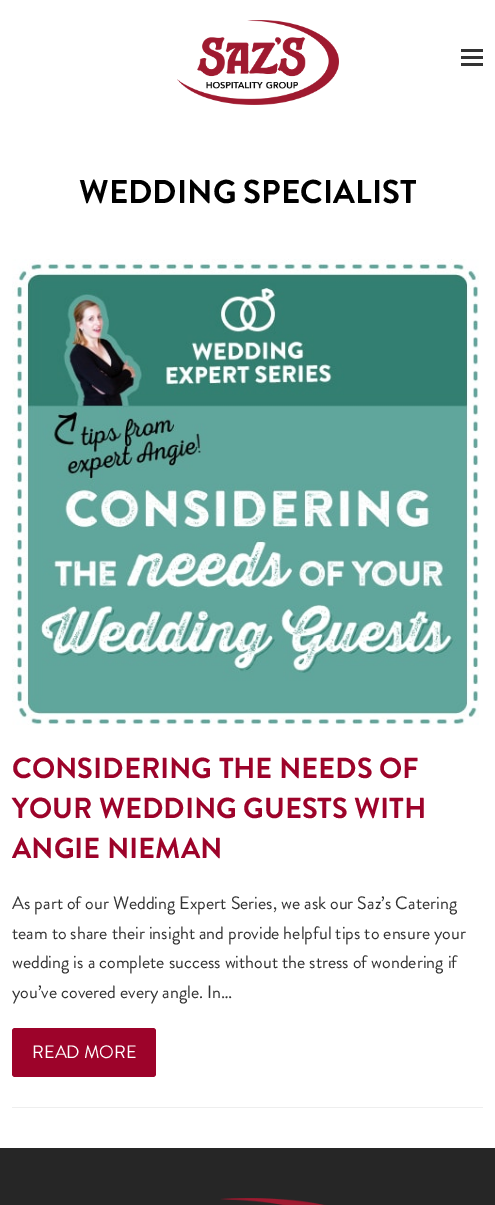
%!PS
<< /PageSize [495 1205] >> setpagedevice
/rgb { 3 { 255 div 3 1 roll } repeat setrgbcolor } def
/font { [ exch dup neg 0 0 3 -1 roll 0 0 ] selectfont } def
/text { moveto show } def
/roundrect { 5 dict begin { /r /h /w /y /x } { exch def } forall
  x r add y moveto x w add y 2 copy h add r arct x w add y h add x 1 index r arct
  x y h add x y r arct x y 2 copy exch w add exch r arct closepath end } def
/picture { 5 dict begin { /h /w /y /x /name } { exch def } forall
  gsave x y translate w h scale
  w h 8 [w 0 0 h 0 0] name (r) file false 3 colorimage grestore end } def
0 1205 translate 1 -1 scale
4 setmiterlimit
255 255 255 rgb
0 0 495 1205 rectfill
(img_01.rgb) 177 20 162 85 picture
51 51 51 rgb
461 56 22 3 rectfill
461 49 22 3 rectfill
461 63 22 3 rectfill
(img_02.rgb) 12 259 467 466 picture
157 3 42 rgb
12 1028 144 49 3 roundrect fill
238 238 238 rgb
12 1107 471 1 rectfill
38 38 38 rgb
0 1148 495 57 rectfill
(img_03.rgb) 220 1198 107 7 picture
/BrandonGrotesque-Bold 33 font
0 0 0 rgb
(WEDDING SPECIALIST) 79 203 text
/BrandonGrotesque-Bold 29 font
157 3 42 rgb
(CONSIDERING THE NEEDS OF) 12 778 text
(YOUR WEDDING GUESTS WITH) 12 818 text
(ANGIE NIEMAN) 12 858 text
/BrandonGrotesque-Regular 18 font
51 51 51 rgb
(As part of our Wedding Expert Series, we ask our Saz’s Catering) 12 909 text
(team to share their insight and provide helpful tips to ensure your) 12 939 text
(wedding is a complete success without the stress of wondering if) 12 968 text
(you’ve covered every angle. In…) 12 998 text
255 255 255 rgb
(READ MORE) 32 1058 text
showpage
